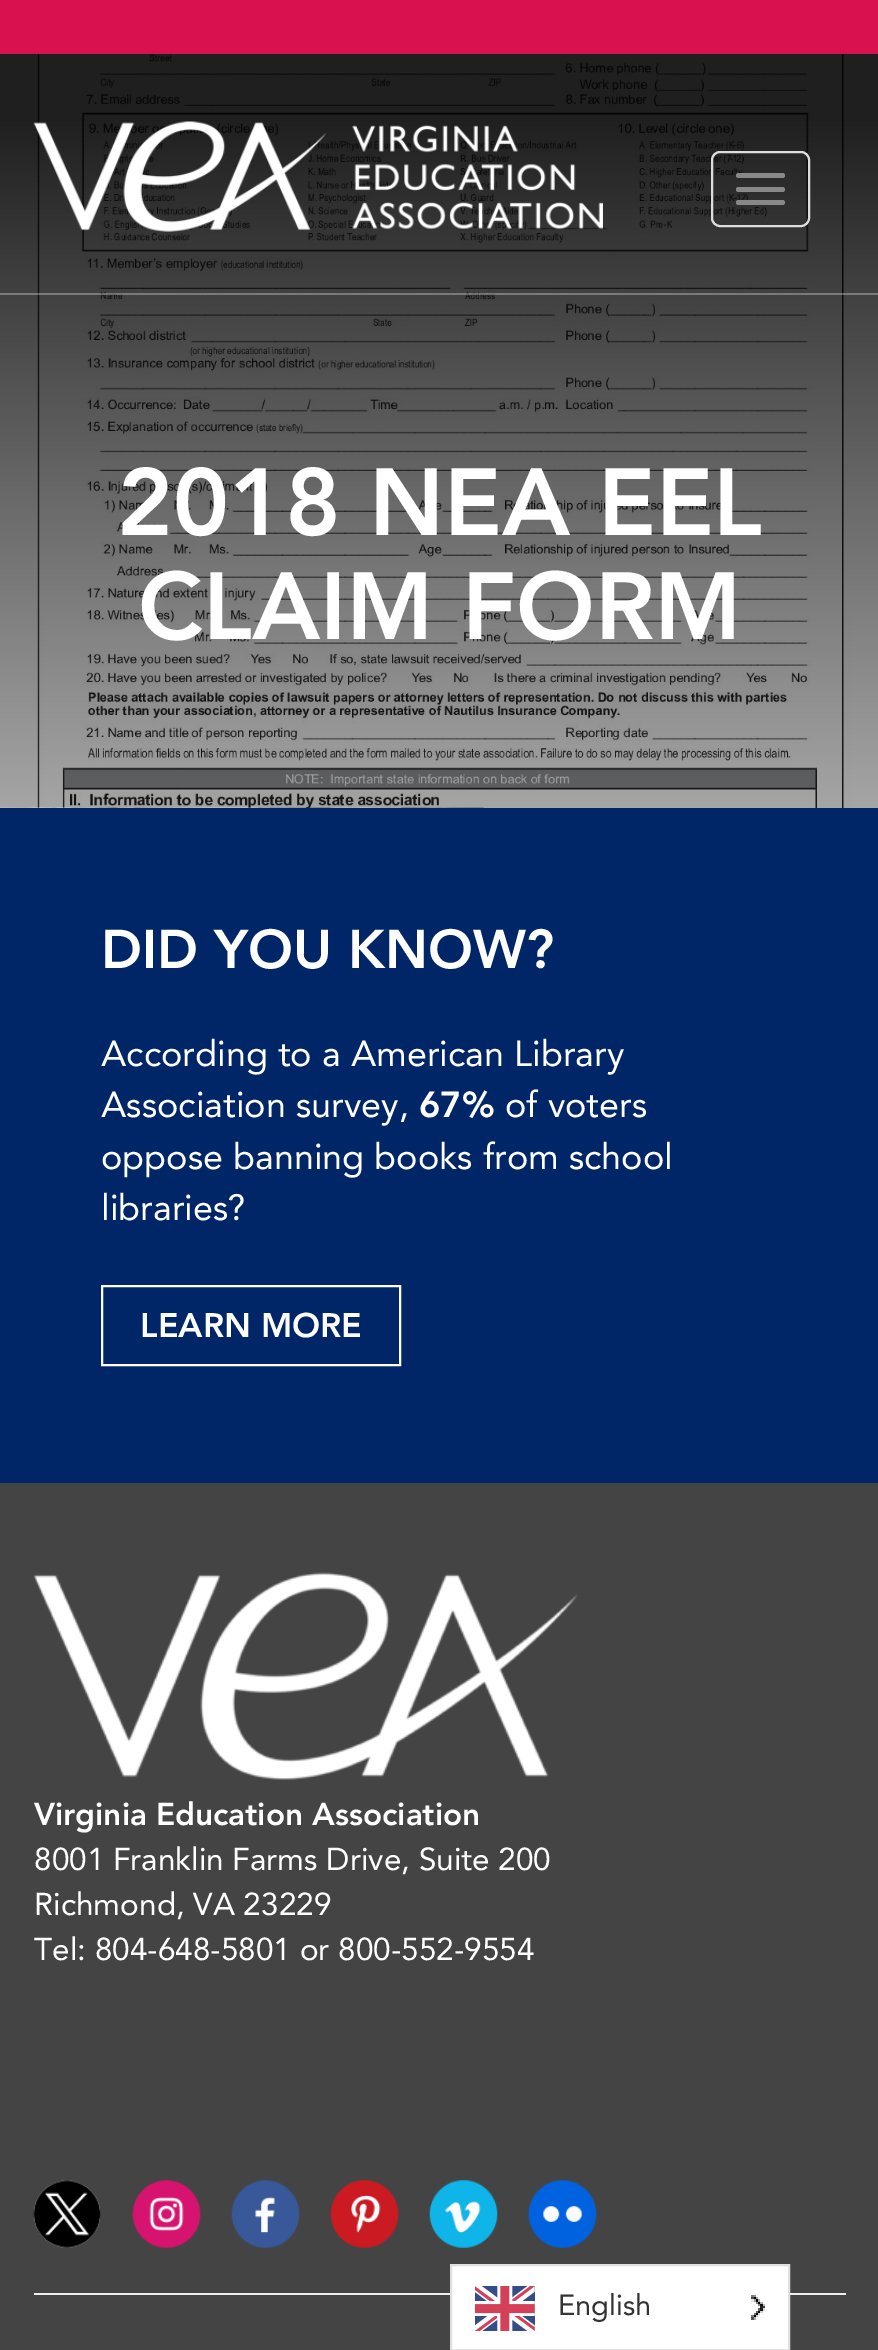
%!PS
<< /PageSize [878 2350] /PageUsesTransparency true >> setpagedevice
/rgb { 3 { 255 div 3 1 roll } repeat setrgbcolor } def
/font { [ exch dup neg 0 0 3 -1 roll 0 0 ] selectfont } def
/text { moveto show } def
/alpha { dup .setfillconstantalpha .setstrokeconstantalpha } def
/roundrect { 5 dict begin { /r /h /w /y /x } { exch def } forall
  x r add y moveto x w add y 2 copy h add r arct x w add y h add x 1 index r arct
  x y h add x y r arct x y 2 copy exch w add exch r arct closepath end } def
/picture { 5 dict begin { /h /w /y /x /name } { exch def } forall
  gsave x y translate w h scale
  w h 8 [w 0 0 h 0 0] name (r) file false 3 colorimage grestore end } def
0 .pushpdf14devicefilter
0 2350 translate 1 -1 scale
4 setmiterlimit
217 17 78 rgb
0 0 878 2350 rectfill
(img_01.rgb) 0 54 878 754 picture
0.3 alpha
255 255 255 rgb
0 293 878 2 rectfill
1 alpha
(img_02.rgb) 33 121 570 111 picture
221 221 221 rgb
2 setlinewidth
712 152 97 74 8 roundrect stroke
136 136 136 rgb
736 173 49 5 2.5 roundrect fill
736 187 49 5 2.5 roundrect fill
736 200 49 5 2.5 roundrect fill
(img_03.rgb) 0 807 484 1 picture
0 38 104 rgb
0 808 878 675 rectfill
255 255 255 rgb
102 1286 298 79 rectstroke
68 68 68 rgb
0 1483 878 867 rectfill
(img_04.rgb) 33 1572 545 208 picture
(img_05.rgb) 33 2180 68 68 picture
(img_06.rgb) 132 2180 69 68 picture
(img_07.rgb) 231 2180 69 68 picture
(img_08.rgb) 330 2180 69 68 picture
(img_09.rgb) 429 2180 69 68 picture
(img_10.rgb) 528 2180 69 68 picture
238 238 238 rgb
34 2293 812 2 rectfill
255 255 255 rgb
451 2265 moveto 338 0 rlineto 0 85 rlineto -338 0 rlineto closepath gsave fill grestore
224 224 224 rgb
stroke
(img_11.rgb) 475 2286 60 45 picture
(img_12.rgb) 751 2295 14 25 picture
/Avenir-Black 94.5 font
255 255 255 rgb
(2018 NEA EEL) 117 535 text
(CLAIM FORM) 138 639 text
/Avenir-Black 54 font
(DID YOU KNOW?) 101 968 text
/Avenir-Regular 36 font
(According to a American Library) 101 1066 text
(Association survey,) 101 1117 text
/Avenir-Black 36 font
(67%) 419 1117 text
/Avenir-Regular 36 font
(of voters) 505 1117 text
(oppose banning books from school) 101 1169 text
(libraries?) 101 1220 text
/Avenir-Black 33.75 font
(LEARN MORE) 140 1337 text
/Avenir-Black 31.5 font
(Virginia Education Association) 34 1825 text
/Avenir-Regular 31.5 font
(8001 Franklin Farms Drive, Suite 200) 34 1870 text
(Richmond, VA 23229) 34 1915 text
(Tel: 804-648-5801 or 800-552-9554) 34 1960 text
/Avenir-Regular 29 font
51 51 51 rgb
(English) 558 2315 text
.poppdf14devicefilter showpage
